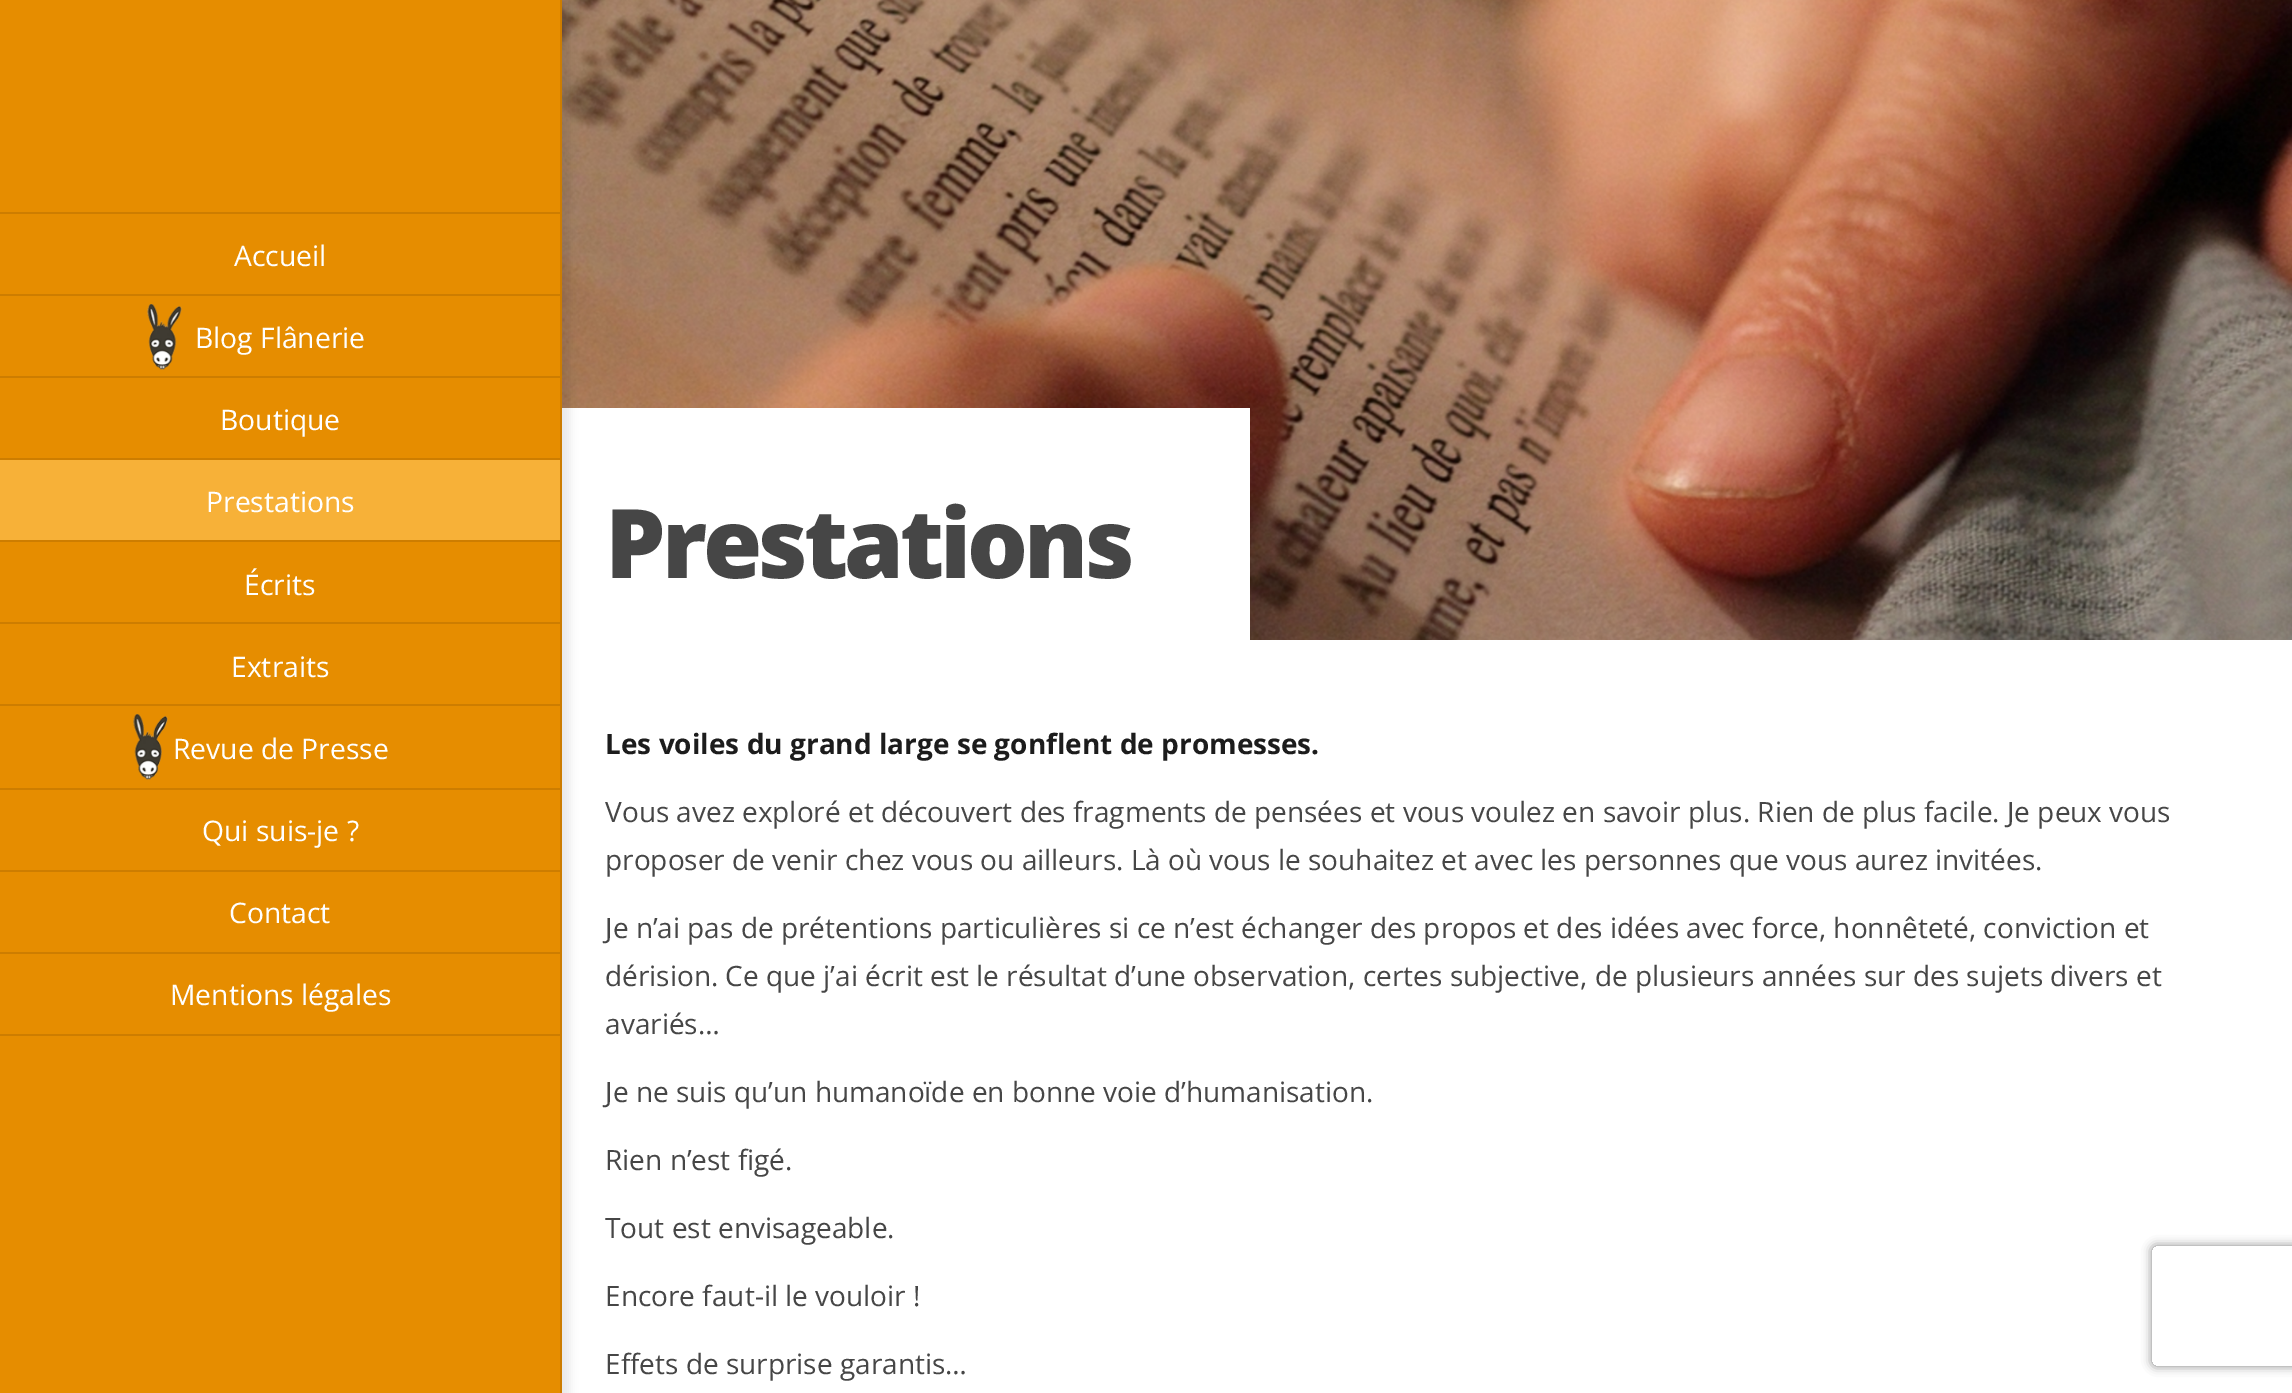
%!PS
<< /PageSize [2292 1393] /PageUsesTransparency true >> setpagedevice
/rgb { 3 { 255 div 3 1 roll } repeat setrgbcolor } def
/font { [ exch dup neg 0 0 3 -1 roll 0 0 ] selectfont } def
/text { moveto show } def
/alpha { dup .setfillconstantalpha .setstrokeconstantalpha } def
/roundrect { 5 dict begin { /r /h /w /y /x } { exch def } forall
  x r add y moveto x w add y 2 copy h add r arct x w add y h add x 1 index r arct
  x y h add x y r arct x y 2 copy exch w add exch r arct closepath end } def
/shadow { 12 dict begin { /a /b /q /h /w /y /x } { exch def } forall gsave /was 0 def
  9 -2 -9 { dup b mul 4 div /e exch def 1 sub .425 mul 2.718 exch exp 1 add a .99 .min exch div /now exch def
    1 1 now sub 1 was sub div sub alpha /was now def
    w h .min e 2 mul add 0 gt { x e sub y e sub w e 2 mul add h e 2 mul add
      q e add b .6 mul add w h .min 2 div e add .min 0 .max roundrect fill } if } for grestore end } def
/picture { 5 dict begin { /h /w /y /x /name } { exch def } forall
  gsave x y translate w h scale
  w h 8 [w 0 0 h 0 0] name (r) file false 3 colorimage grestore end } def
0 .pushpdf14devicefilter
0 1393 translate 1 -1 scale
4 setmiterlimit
255 255 255 rgb
0 0 2292 1393 rectfill
(img_03.rgb) 562 0 1730 640 picture
562 408 688 232 rectfill
0 0 0 rgb
8 0 562 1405 0 4 0.08 shadow
230 141 0 rgb
0 0 560 1393 rectfill
205 125 0 rgb
560 0 2 1393 rectfill
0 212 560 2 rectfill
0 294 560 2 rectfill
(img_01.rgb) 147 304 35 66 picture
0 376 560 2 rectfill
0 458 560 2 rectfill
247 177 56 rgb
0 460 560 80 rectfill
205 125 0 rgb
0 540 560 2 rectfill
0 622 560 2 rectfill
0 704 560 2 rectfill
(img_02.rgb) 133 714 35 66 picture
0 788 560 2 rectfill
0 870 560 2 rectfill
0 952 560 2 rectfill
0 1034 560 2 rectfill
gsave
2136 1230 moveto 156 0 rlineto 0 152 rlineto -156 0 rlineto closepath 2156 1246 moveto 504 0 rlineto 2 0 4 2 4 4 rcurveto 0 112 rlineto 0 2 -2 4 -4 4 rcurveto -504 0 rlineto -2 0 -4 -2 -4 -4 rcurveto 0 -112 rlineto 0 -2 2 -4 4 -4 rcurveto closepath eoclip newpath
128 128 128 rgb
2152 1246 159 120 4 5 1 shadow
grestore
/OpenSans-Regular 28.25 font
255 255 255 rgb
(Accueil) 234 266 text
(Blog Flânerie) 195 348 text
(Boutique) 220 430 text
(Prestations) 206 512 text
(Écrits) 244 595 text
(Extraits) 231 677 text
(Revue de Presse) 173 759 text
(Qui suis-je ?) 202 841 text
(Contact) 229 923 text
(Mentions légales) 170 1005 text
/OpenSans-ExtraBold 96 font
70 70 70 rgb
605 578 moveto -4 0 (Prestations) ashow
/OpenSans-Bold 28 font
28 28 28 rgb
(Les voiles du grand large se gonflent de promesses.) 605 754 text
/OpenSans-Regular 28 font
70 70 70 rgb
(Vous avez exploré et découvert des fragments de pensées et vous voulez en savoir plus. Rien de plus facile. Je peux vous) 605 822 text
(proposer de venir chez vous ou ailleurs. Là où vous le souhaitez et avec les personnes que vous aurez invitées.) 605 870 text
(Je n’ai pas de prétentions particulières si ce n’est échanger des propos et des idées avec force, honnêteté, conviction et) 605 938 text
(dérision. Ce que j’ai écrit est le résultat d’une observation, certes subjective, de plusieurs années sur des sujets divers et) 605 986 text
(avariés…) 605 1034 text
(Je ne suis qu’un humanoïde en bonne voie d’humanisation.) 605 1102 text
(Rien n’est figé.) 605 1170 text
(Tout est envisageable.) 605 1238 text
(Encore faut-il le vouloir !) 605 1306 text
(Effets de surprise garantis…) 605 1374 text
.poppdf14devicefilter showpage
